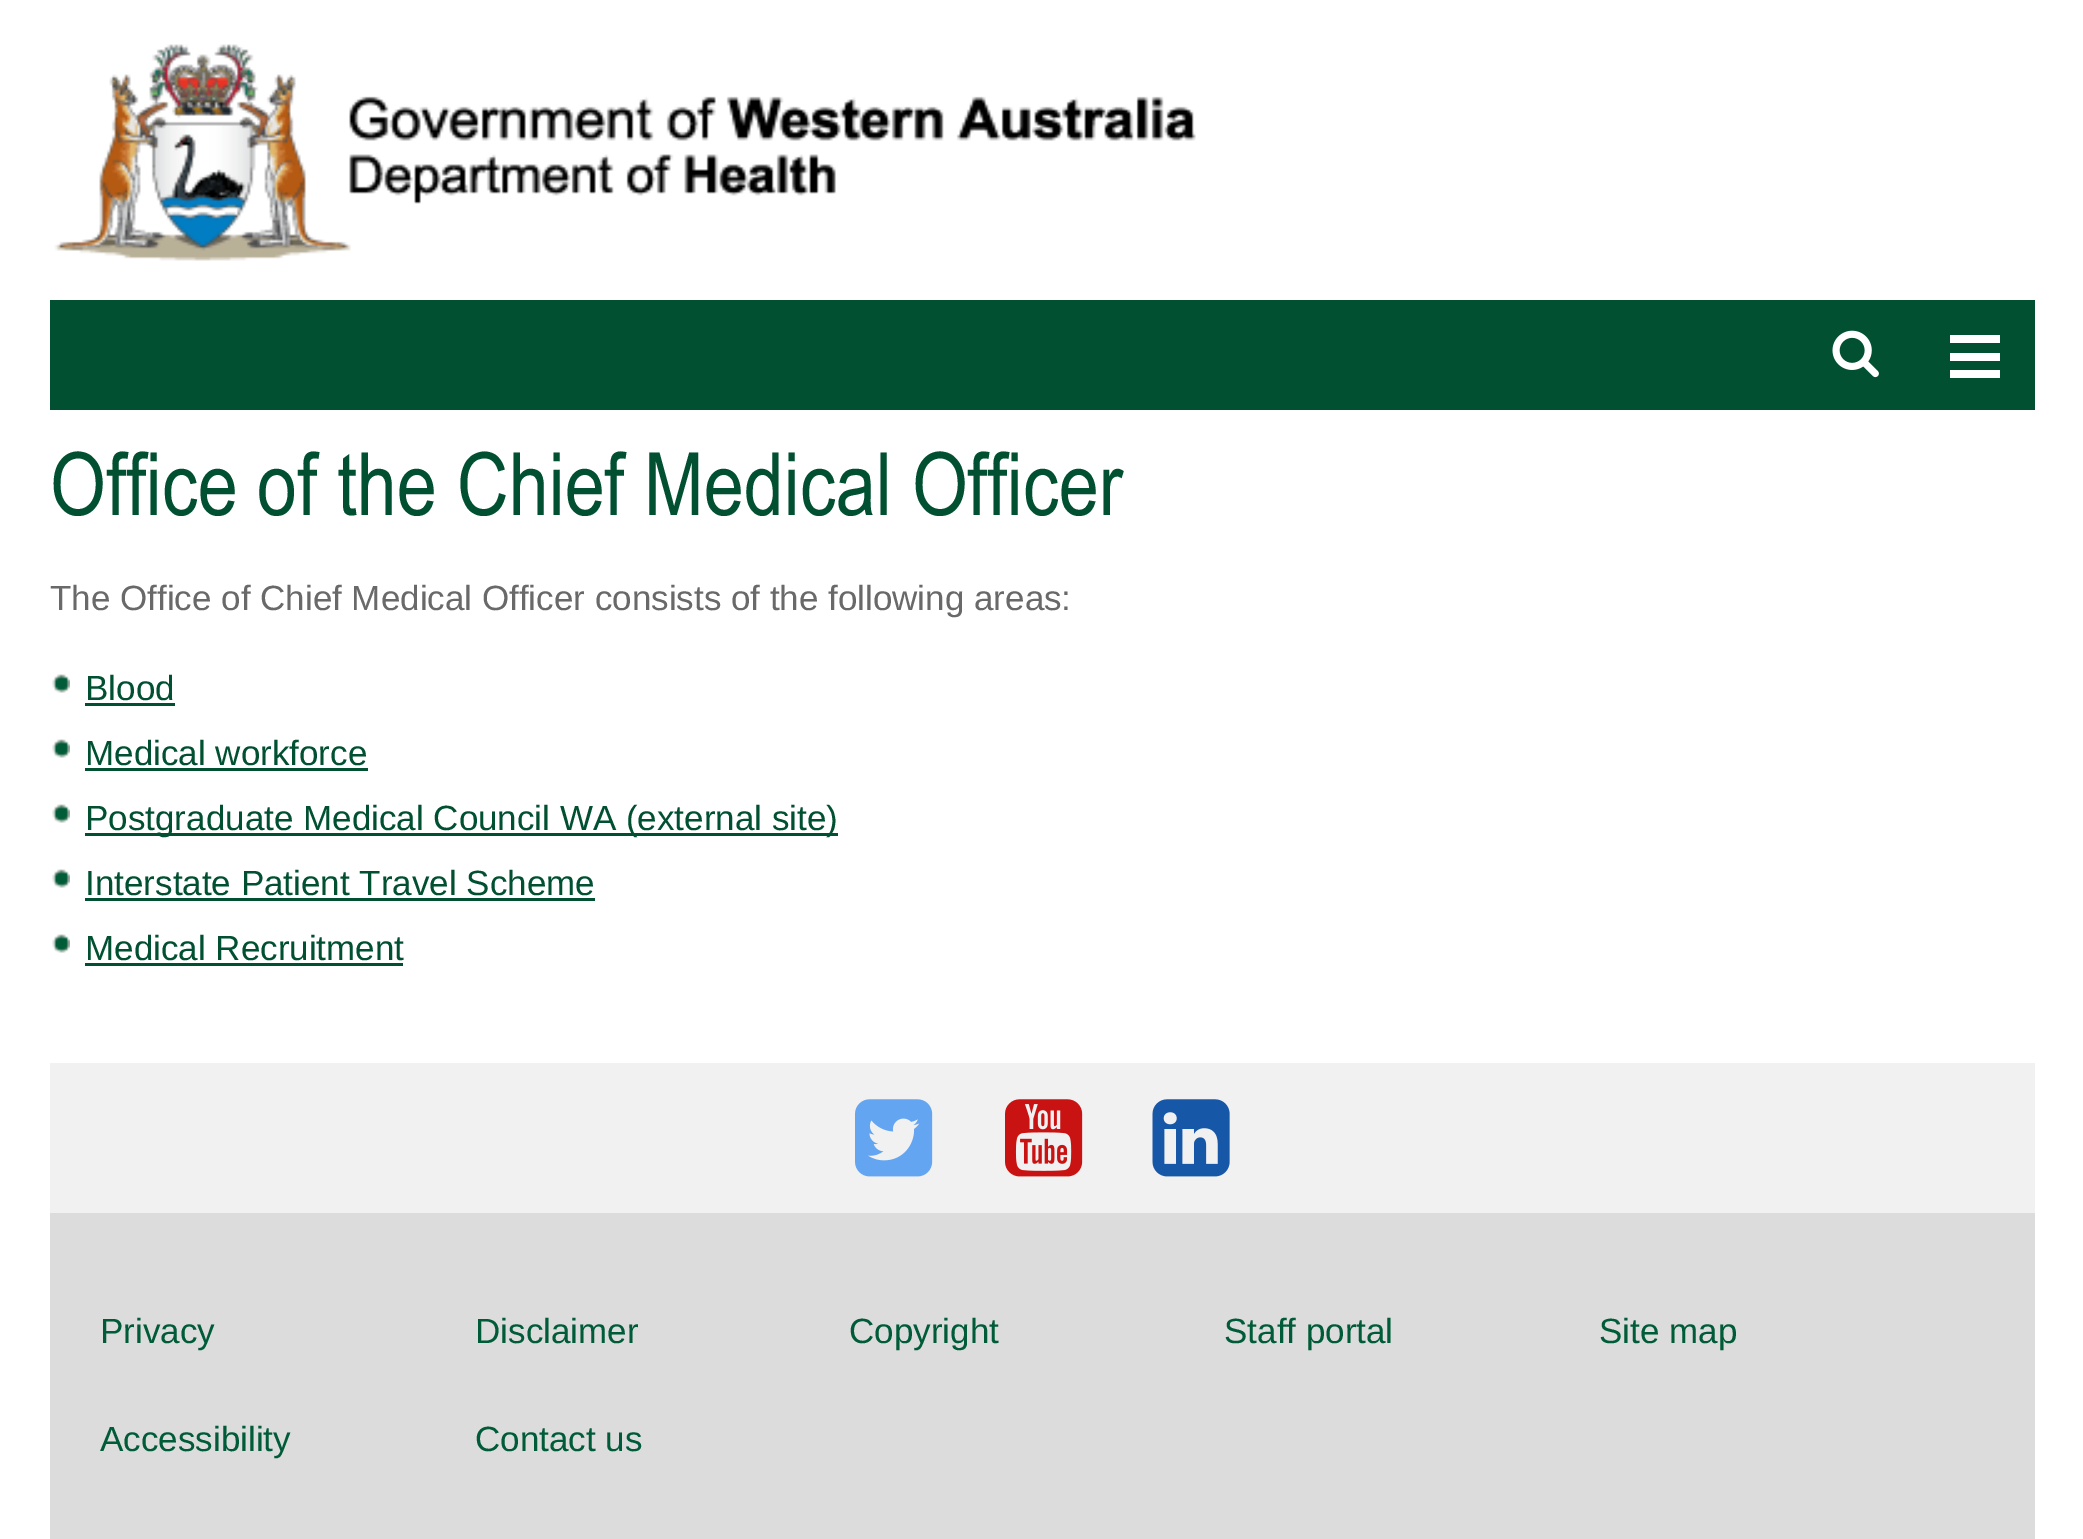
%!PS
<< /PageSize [2083 1539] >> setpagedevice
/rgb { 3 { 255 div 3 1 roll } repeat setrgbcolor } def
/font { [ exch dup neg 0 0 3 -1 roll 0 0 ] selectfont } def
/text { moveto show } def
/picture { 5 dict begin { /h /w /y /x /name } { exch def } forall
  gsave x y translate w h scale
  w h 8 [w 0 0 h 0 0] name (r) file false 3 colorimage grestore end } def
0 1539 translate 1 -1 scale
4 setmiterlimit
255 255 255 rgb
0 0 2083 1539 rectfill
(img_01.rgb) 54 44 1142 217 picture
0 80 49 rgb
50 300 1985 110 rectfill
(img_02.rgb) 1832 330 47 48 picture
255 255 255 rgb
1950 353 50 8 rectfill
1950 335 50 8 rectfill
1950 370 50 8 rectfill
(img_03.rgb) 52 674 18 19 picture
0 80 49 rgb
85 703 90 3 rectfill
(img_03.rgb) 52 739 18 19 picture
85 768 283 3 rectfill
(img_03.rgb) 52 804 18 19 picture
85 833 753 3 rectfill
(img_03.rgb) 52 869 18 19 picture
85 898 510 3 rectfill
(img_03.rgb) 52 934 18 19 picture
85 963 318 3 rectfill
241 241 241 rgb
50 1063 1985 150 rectfill
(img_04.rgb) 855 1099 78 78 picture
(img_05.rgb) 1005 1099 78 78 picture
(img_06.rgb) 1152 1099 78 78 picture
220 220 220 rgb
50 1213 1985 326 rectfill
/Arial-Regular 87.5 font
0 80 49 rgb
(Office of the Chief Medical Officer) 50 515 text
/LiberationSans-Regular 35 font
105 105 105 rgb
(The Office of Chief Medical Officer consists of the following areas:) 50 610 text
0 80 49 rgb
(Blood) 85 700 text
(Medical workforce) 85 765 text
(Postgraduate Medical Council WA \(external site\)) 85 830 text
(Interstate Patient Travel Scheme) 85 895 text
(Medical Recruitment) 85 960 text
0 91 56 rgb
(Privacy) 100 1343 text
(Disclaimer) 475 1343 text
(Copyright) 849 1343 text
(Staff portal) 1224 1343 text
(Site map) 1599 1343 text
(Accessibility) 100 1451 text
(Contact us) 475 1451 text
showpage
